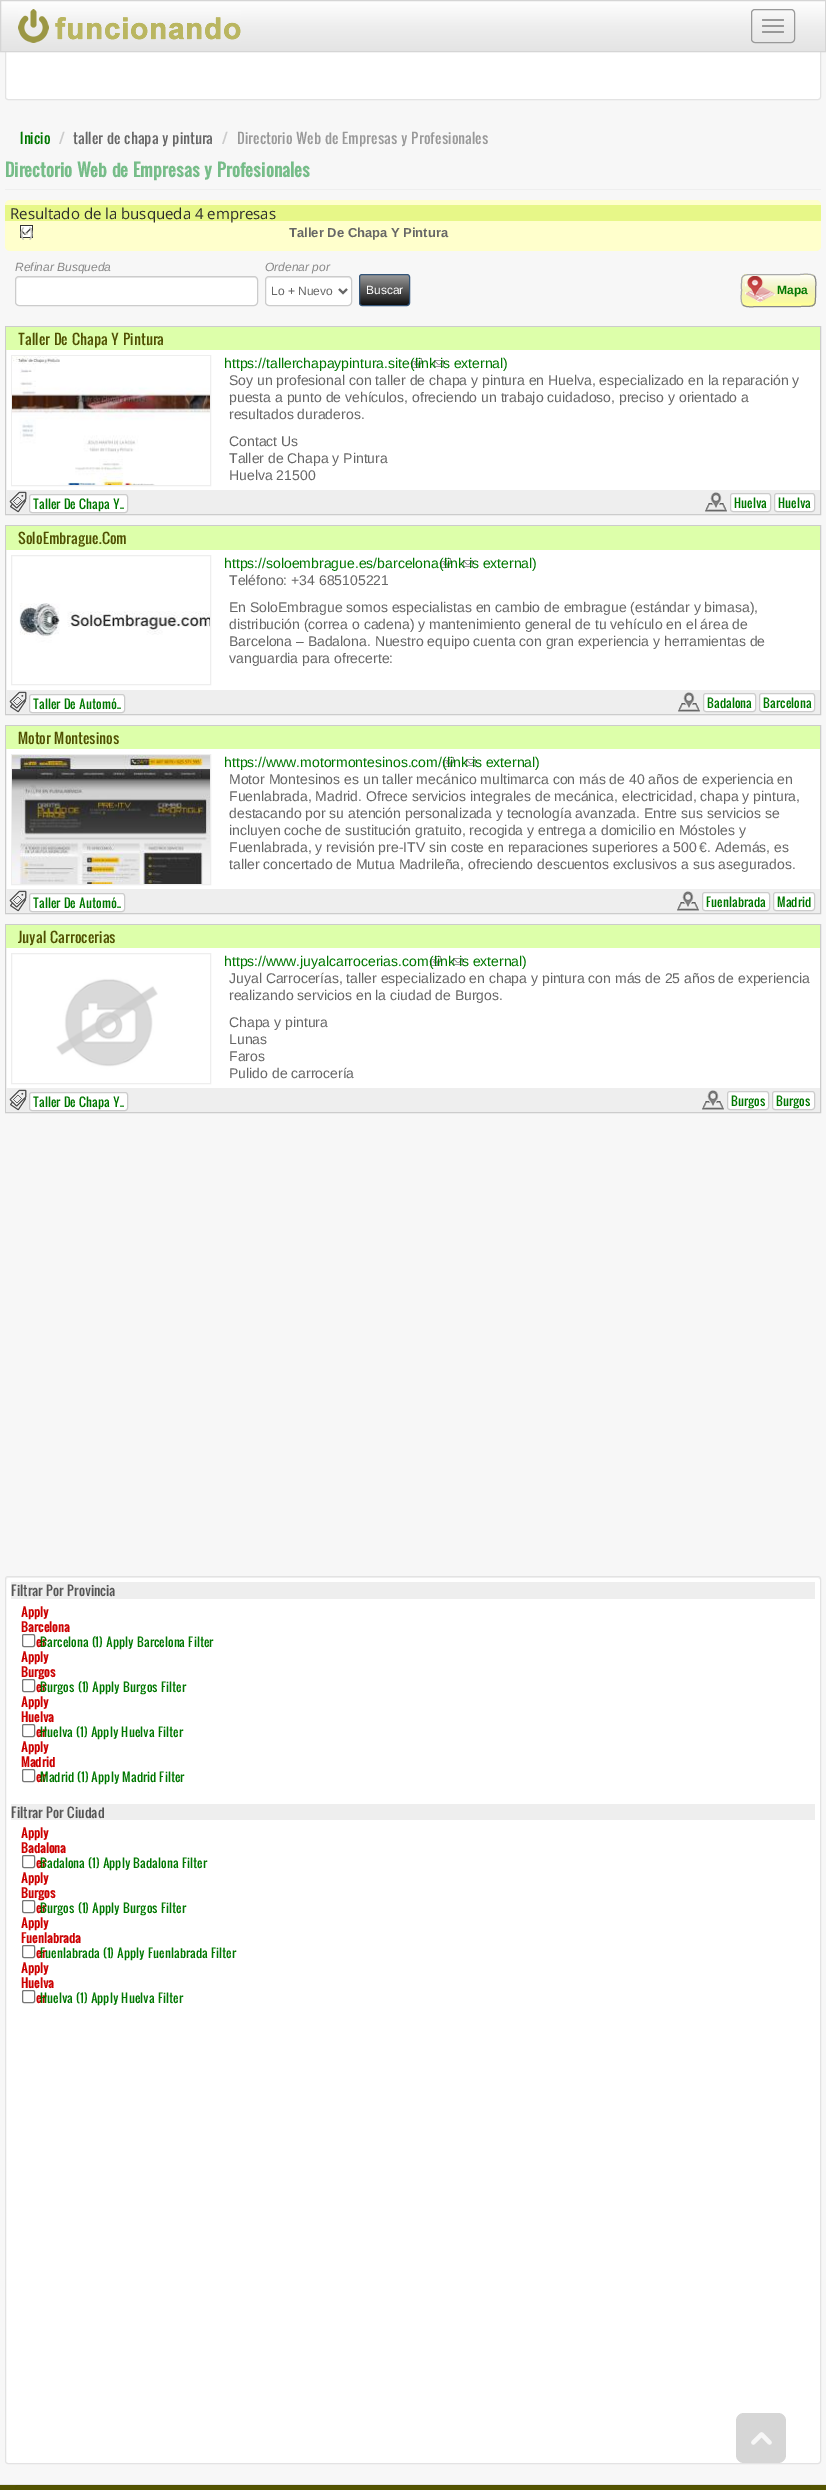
%!PS
<< /PageSize [826 2490] >> setpagedevice
/rgb { 3 { 255 div 3 1 roll } repeat setrgbcolor } def
/font { [ exch dup neg 0 0 3 -1 roll 0 0 ] selectfont } def
/text { moveto show } def
/roundrect { 5 dict begin { /r /h /w /y /x } { exch def } forall
  x r add y moveto x w add y 2 copy h add r arct x w add y h add x 1 index r arct
  x y h add x y r arct x y 2 copy exch w add exch r arct closepath end } def
/picture { 5 dict begin { /h /w /y /x /name } { exch def } forall
  gsave x y translate w h scale
  w h 8 [w 0 0 h 0 0] name (r) file false 3 colorimage grestore end } def
0 2490 translate 1 -1 scale
4 setmiterlimit
247 247 247 rgb
0 0 826 2490 rectfill
255 255 255 rgb
5.5 -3.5 815 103 2.5 roundrect gsave fill grestore
227 227 227 rgb
stroke
gsave 1 1 moveto 824 0 rlineto 0 50 rlineto -824 0 rlineto closepath clip newpath
<< /ShadingType 2 /ColorSpace /DeviceRGB /Coords [413 1 413 51] /Extend [true true] /Function << /FunctionType 3 /Domain [0 1] /Functions [<< /FunctionType 2 /Domain [0 1] /C0 [1 1 1] /C1 [0.933 0.933 0.933] /N 1 >> << /FunctionType 2 /Domain [0 1] /C0 [0.933 0.933 0.933] /C1 [0.894 0.894 0.894] /N 1 >>] /Bounds [0.5] /Encode [0 1 0 1] >> >> shfill grestore
213 213 213 rgb
0.5 0.5 825 51 rectstroke
(img_01.rgb) 18 9 223 34 picture
153 153 153 rgb
751.5 9.5 43 33 3.5 roundrect stroke
762 19 22 2 1 roundrect fill
762 25 22 2 1 roundrect fill
762 31 22 2 1 roundrect fill
238 238 238 rgb
5 189 816 1 rectfill
255 255 204 rgb
5 200 816 51 5 roundrect fill
231 247 136 rgb
5 205 816 16 rectfill
(img_02.rgb) 20 225 13 13 picture
255 255 255 rgb
15 276 243 30 4 roundrect fill
236 236 236 rgb
19 278 moveto 236 0 rlineto 2 1 rlineto 0 2 rlineto 0 -2 -1 -4 -3 -4 rcurveto -235 0 rlineto -2 0 -3 2 -3 4 rcurveto 0 -2 1 -3 3 -3 rcurveto closepath fill
204 204 204 rgb
15.5 276.5 242 29 3.5 roundrect stroke
255 255 255 rgb
265 276 87 30 4 roundrect fill
236 236 236 rgb
269 278 moveto 79 0 rlineto 2 0 3 1 3 3 rcurveto 0 -7 -12 -4 -16 -4 rcurveto -53 0 rlineto -4 0 -16 -3 -16 4 rcurveto 0 -2 1 -3 3 -3 rcurveto closepath fill
204 204 204 rgb
265.5 276.5 86 29 3.5 roundrect stroke
102 102 102 rgb
2 setlinewidth
339 289 moveto 4 4 rlineto 4 -4 rlineto stroke
gsave 360 275 moveto 49 0 rlineto 0 30 rlineto -49 0 rlineto closepath clip newpath
<< /ShadingType 2 /ColorSpace /DeviceRGB /Coords [385 275 385 305] /Extend [true true] /Function << /FunctionType 3 /Domain [0 1] /Functions [<< /FunctionType 2 /Domain [0 1] /C0 [0.6 0.6 0.6] /C1 [0.333 0.333 0.333] /N 1 >> << /FunctionType 2 /Domain [0 1] /C0 [0.333 0.333 0.333] /C1 [0.067 0.067 0.067] /N 1 >>] /Bounds [0.5] /Encode [0 1 0 1] >> >> shfill grestore
52 85 120 rgb
1 setlinewidth
359.5 274.5 50 31 2.5 roundrect stroke
255 255 153 rgb
741 274 75 33 6 roundrect fill
(img_03.rgb) 742 275 74 28 picture
136 136 136 rgb
814 276 moveto 3 3 1.5 11 1.5 14.5 rcurveto 0 16.5 1.5 16 -16 16 rcurveto -42 0 rlineto -2.5 0 -11 1.5 -14.5 -1.5 rcurveto stroke
170 170 170 rgb
743 305 moveto -3 -3 -1.5 -11 -1.5 -14.5 rcurveto 0 -16.5 -1.5 -16 16 -16 rcurveto 42 0 rlineto 2.5 0 11 -1.5 14.5 1.5 rcurveto stroke
255 255 255 rgb
6 350 814 140 rectfill
204 204 204 rgb
5.5 326.5 815 188 rectstroke
221 255 170 rgb
6 327 814 23 rectfill
238 238 238 rgb
11.5 355.5 199 130 rectstroke
(img_04.rgb) 12 356 198 129 picture
(img_05.rgb) 412 358 32 10 picture
6 490 814 24 rectfill
(img_06.rgb) 9 491 18 22 picture
255 255 255 rgb
29.5 494.5 98 18 2.5 roundrect gsave fill grestore
204 204 204 rgb
stroke
(img_07.rgb) 705 492 22 20 picture
255 255 255 rgb
730.5 493.5 40 18 2.5 roundrect gsave fill grestore
204 204 204 rgb
stroke
255 255 255 rgb
774.5 493.5 40 18 2.5 roundrect gsave fill grestore
204 204 204 rgb
stroke
255 255 255 rgb
6 550 814 140 rectfill
204 204 204 rgb
5.5 525.5 815 189 rectstroke
221 255 170 rgb
6 526 814 24 rectfill
238 238 238 rgb
11.5 555.5 199 129 rectstroke
(img_08.rgb) 19 565 191 109 picture
(img_05.rgb) 441 558 32 10 picture
6 690 814 24 rectfill
(img_06.rgb) 9 691 18 22 picture
255 255 255 rgb
29.5 694.5 95 18 2.5 roundrect gsave fill grestore
204 204 204 rgb
stroke
(img_07.rgb) 678 692 22 20 picture
255 255 255 rgb
703.5 693.5 52 18 2.5 roundrect gsave fill grestore
204 204 204 rgb
stroke
255 255 255 rgb
759.5 693.5 55 18 2.5 roundrect gsave fill grestore
204 204 204 rgb
stroke
255 255 255 rgb
6 749 814 140 rectfill
204 204 204 rgb
5.5 725.5 815 188 rectstroke
221 255 170 rgb
6 726 814 23 rectfill
238 238 238 rgb
11.5 754.5 199 130 rectstroke
(img_09.rgb) 12 755 198 129 picture
(img_05.rgb) 444 757 32 10 picture
6 889 814 24 rectfill
(img_06.rgb) 9 890 18 22 picture
255 255 255 rgb
29.5 893.5 95 18 2.5 roundrect gsave fill grestore
204 204 204 rgb
stroke
(img_07.rgb) 677 891 22 20 picture
255 255 255 rgb
702.5 892.5 67 18 2.5 roundrect gsave fill grestore
204 204 204 rgb
stroke
255 255 255 rgb
773.5 892.5 41 18 2.5 roundrect gsave fill grestore
204 204 204 rgb
stroke
255 255 255 rgb
6 948 814 140 rectfill
204 204 204 rgb
5.5 924.5 815 188 rectstroke
221 255 170 rgb
6 925 814 23 rectfill
238 238 238 rgb
11.5 953.5 199 130 rectstroke
(img_10.rgb) 40 964 133 109 picture
(img_05.rgb) 431 956 32 10 picture
6 1088 814 24 rectfill
(img_06.rgb) 9 1089 18 22 picture
255 255 255 rgb
29.5 1092.5 98 18 2.5 roundrect gsave fill grestore
204 204 204 rgb
stroke
(img_07.rgb) 702 1090 22 20 picture
255 255 255 rgb
727.5 1091.5 41 18 2.5 roundrect gsave fill grestore
204 204 204 rgb
stroke
255 255 255 rgb
772.5 1091.5 42 18 2.5 roundrect gsave fill grestore
204 204 204 rgb
stroke
255 255 255 rgb
5 1576 816 888 3 roundrect fill
242 242 242 rgb
8 1578 moveto 810 0 rlineto 1 0 2 1 2 2 rcurveto 0 -1 0 -3 -2 -3 rcurveto -810 0 rlineto -2 0 -2 2 -2 3 rcurveto 0 -1 1 -2 2 -2 rcurveto closepath fill
227 227 227 rgb
5.5 1576.5 815 887 2.5 roundrect stroke
238 238 238 rgb
11 1582 804 17 rectfill
118 118 118 rgb
22.5 1634.5 12 12 1.5 roundrect stroke
22.5 1724.5 12 12 1.5 roundrect stroke
22.5 1769.5 12 12 1.5 roundrect stroke
238 238 238 rgb
11 1804 804 16 rectfill
118 118 118 rgb
22.5 1855.5 12 12 1.5 roundrect stroke
22.5 1945.5 12 12 1.5 roundrect stroke
22.5 1990.5 12 12 1.5 roundrect stroke
214 214 214 rgb
736 2413 50 50 8 roundrect fill
(img_11.rgb) 751 2432 21 13 picture
83 83 0 rgb
0 2485 826 5 rectfill
229 229 229 rgb
0 2484 826 1 rectfill
79 79 0 rgb
18 2486 moveto 790 0 rlineto 2 0 3 1 3 3 rcurveto 0 -2 -1 -4 -3 -4 rcurveto -790 0 rlineto -2 0 -3 2 -3 4 rcurveto 0 -2 1 -3 3 -3 rcurveto closepath fill
/Oswald-Regular 14 font
0 119 0 rgb
(Inicio) 20 144 text
204 204 204 rgb
(/) 59 144 text
102 102 102 rgb
(taller de chapa y pintura) 73 144 text
204 204 204 rgb
(/) 222 144 text
153 153 153 rgb
(Directorio Web de Empresas y Profesionales) 237 144 text
/Oswald-Bold 17 font
119 189 137 rgb
(Directorio Web de Empresas y Profesionales) 5 177 text
/OpenSans-Regular 15 font
45 45 45 rgb
(Resultado de la busqueda 4 empresas) 10 219 text
/LiberationSans-Bold 13 font
192 192 185 rgb
(\(-\)) 20 237 text
102 102 102 rgb
(Taller De Chapa Y Pintura) 289 237 text
/LiberationSans-Italic 12 font
136 136 136 rgb
(Refinar Busqueda) 15 271 text
(Ordenar por) 265 271 text
/LiberationSans-Regular 12 font
102 102 102 rgb
(Lo + Nuevo) 271 295 text
255 255 255 rgb
(Buscar) 366 294 text
/LiberationSans-Bold 12 font
0 119 0 rgb
(Mapa) 777 294 text
/Oswald-Regular 14 font
79 79 0 rgb
(Taller De Chapa Y Pintura) 18 345 text
/LiberationSans-Regular 14 font
0 119 0 rgb
(https://tallerchapaypintura.site) 224 368 text
(\(link is external\)) 410 368 text
102 102 102 rgb
(Soy un profesional con taller de chapa y pintura en Huelva, especializado en la reparación y) 229 385 text
(puesta a punto de vehículos, ofreciendo un trabajo cuidadoso, preciso y orientado a) 229 402 text
(resultados duraderos.) 229 419 text
(Contact Us) 229 446 text
(Taller de Chapa y Pintura) 229 463 text
(Huelva 21500) 229 480 text
/Oswald-Regular 12 font
0 119 0 rgb
(Taller De Chapa Y..) 33 509 text
(Huelva) 734 508 text
(Huelva) 778 508 text
/Oswald-Regular 14 font
79 79 0 rgb
(SoloEmbrague.Com) 18 544 text
/LiberationSans-Regular 14 font
0 119 0 rgb
(https://soloembrague.es/barcelona) 224 568 text
(\(link is external\)) 439 568 text
102 102 102 rgb
(Teléfono: +34 685105221) 229 585 text
(En SoloEmbrague somos especialistas en cambio de embrague \(estándar y bimasa\),) 229 612 text
(distribución \(correa o cadena\) y mantenimiento general de tu vehículo en el área de) 229 629 text
(Barcelona – Badalona. Nuestro equipo cuenta con gran experiencia y herramientas de) 229 646 text
(vanguardia para ofrecerte:) 229 663 text
/Oswald-Regular 12 font
0 119 0 rgb
(Taller De Automó..) 33 709 text
(Badalona) 707 708 text
(Barcelona) 763 708 text
/Oswald-Regular 14 font
79 79 0 rgb
(Motor Montesinos) 18 744 text
/LiberationSans-Regular 14 font
0 119 0 rgb
(https://www.motormontesinos.com/) 224 767 text
(\(link is external\)) 442 767 text
102 102 102 rgb
(Motor Montesinos es un taller mecánico multimarca con más de 40 años de experiencia en) 229 784 text
(Fuenlabrada, Madrid. Ofrece servicios integrales de mecánica, electricidad, chapa y pintura,) 229 801 text
(destacando por su atención personalizada y tecnología avanzada. Entre sus servicios se) 229 818 text
(incluyen coche de sustitución gratuito, recogida y entrega a domicilio en Móstoles y) 229 835 text
(Fuenlabrada, y revisión pre-ITV sin coste en reparaciones superiores a 500 €. Además, es) 229 852 text
(taller concertado de Mutua Madrileña, ofreciendo descuentos exclusivos a sus asegurados.) 229 869 text
/Oswald-Regular 12 font
0 119 0 rgb
(Taller De Automó..) 33 908 text
(Fuenlabrada) 706 907 text
(Madrid) 777 907 text
/Oswald-Regular 14 font
79 79 0 rgb
(Juyal Carrocerias) 18 943 text
/LiberationSans-Regular 14 font
0 119 0 rgb
(https://www.juyalcarrocerias.com) 224 966 text
(\(link is external\)) 429 966 text
102 102 102 rgb
(Juyal Carrocerías, taller especializado en chapa y pintura con más de 25 años de experiencia) 229 983 text
(realizando servicios en la ciudad de Burgos.) 229 1000 text
(Chapa y pintura) 229 1027 text
(Lunas) 229 1044 text
(Faros) 229 1061 text
(Pulido de carrocería) 229 1078 text
/Oswald-Regular 12 font
0 119 0 rgb
(Taller De Chapa Y..) 33 1107 text
(Burgos) 731 1106 text
(Burgos) 776 1106 text
/Oswald-Regular 13 font
85 85 85 rgb
(Filtrar Por Provincia) 11 1596 text
/Oswald-Bold 12 font
204 0 0 rgb
(Apply) 21 1617 text
(Barcelona) 21 1632 text
(er) 36 1647 text
/Oswald-Regular 12 font
0 119 0 rgb
(Barcelona \(1\) Apply Barcelona Filter) 40 1647 text
/Oswald-Bold 12 font
204 0 0 rgb
(Apply) 21 1662 text
(Burgos) 21 1677 text
(er) 36 1692 text
118 118 118 rgb
22.5 1679.5 12 12 1.5 roundrect stroke
/Oswald-Regular 12 font
0 119 0 rgb
(Burgos \(1\) Apply Burgos Filter) 40 1692 text
/Oswald-Bold 12 font
204 0 0 rgb
(Apply) 21 1707 text
(Huelva) 21 1722 text
(er) 36 1737 text
/Oswald-Regular 12 font
0 119 0 rgb
(Huelva \(1\) Apply Huelva Filter) 40 1737 text
/Oswald-Bold 12 font
204 0 0 rgb
(Apply) 21 1752 text
(Madrid) 21 1767 text
(er) 36 1782 text
/Oswald-Regular 12 font
0 119 0 rgb
(Madrid \(1\) Apply Madrid Filter) 40 1782 text
/Oswald-Regular 13 font
85 85 85 rgb
(Filtrar Por Ciudad) 11 1818 text
/Oswald-Bold 12 font
204 0 0 rgb
(Apply) 21 1838 text
(Badalona) 21 1853 text
(er) 36 1868 text
/Oswald-Regular 12 font
0 119 0 rgb
(Badalona \(1\) Apply Badalona Filter) 40 1868 text
/Oswald-Bold 12 font
204 0 0 rgb
(Apply) 21 1883 text
(Burgos) 21 1898 text
(er) 36 1913 text
118 118 118 rgb
22.5 1900.5 12 12 1.5 roundrect stroke
/Oswald-Regular 12 font
0 119 0 rgb
(Burgos \(1\) Apply Burgos Filter) 40 1913 text
/Oswald-Bold 12 font
204 0 0 rgb
(Apply) 21 1928 text
(Fuenlabrada) 21 1943 text
(er) 36 1958 text
/Oswald-Regular 12 font
0 119 0 rgb
(Fuenlabrada \(1\) Apply Fuenlabrada Filter) 40 1958 text
/Oswald-Bold 12 font
204 0 0 rgb
(Apply) 21 1973 text
(Huelva) 21 1988 text
(er) 36 2003 text
/Oswald-Regular 12 font
0 119 0 rgb
(Huelva \(1\) Apply Huelva Filter) 40 2003 text
showpage
